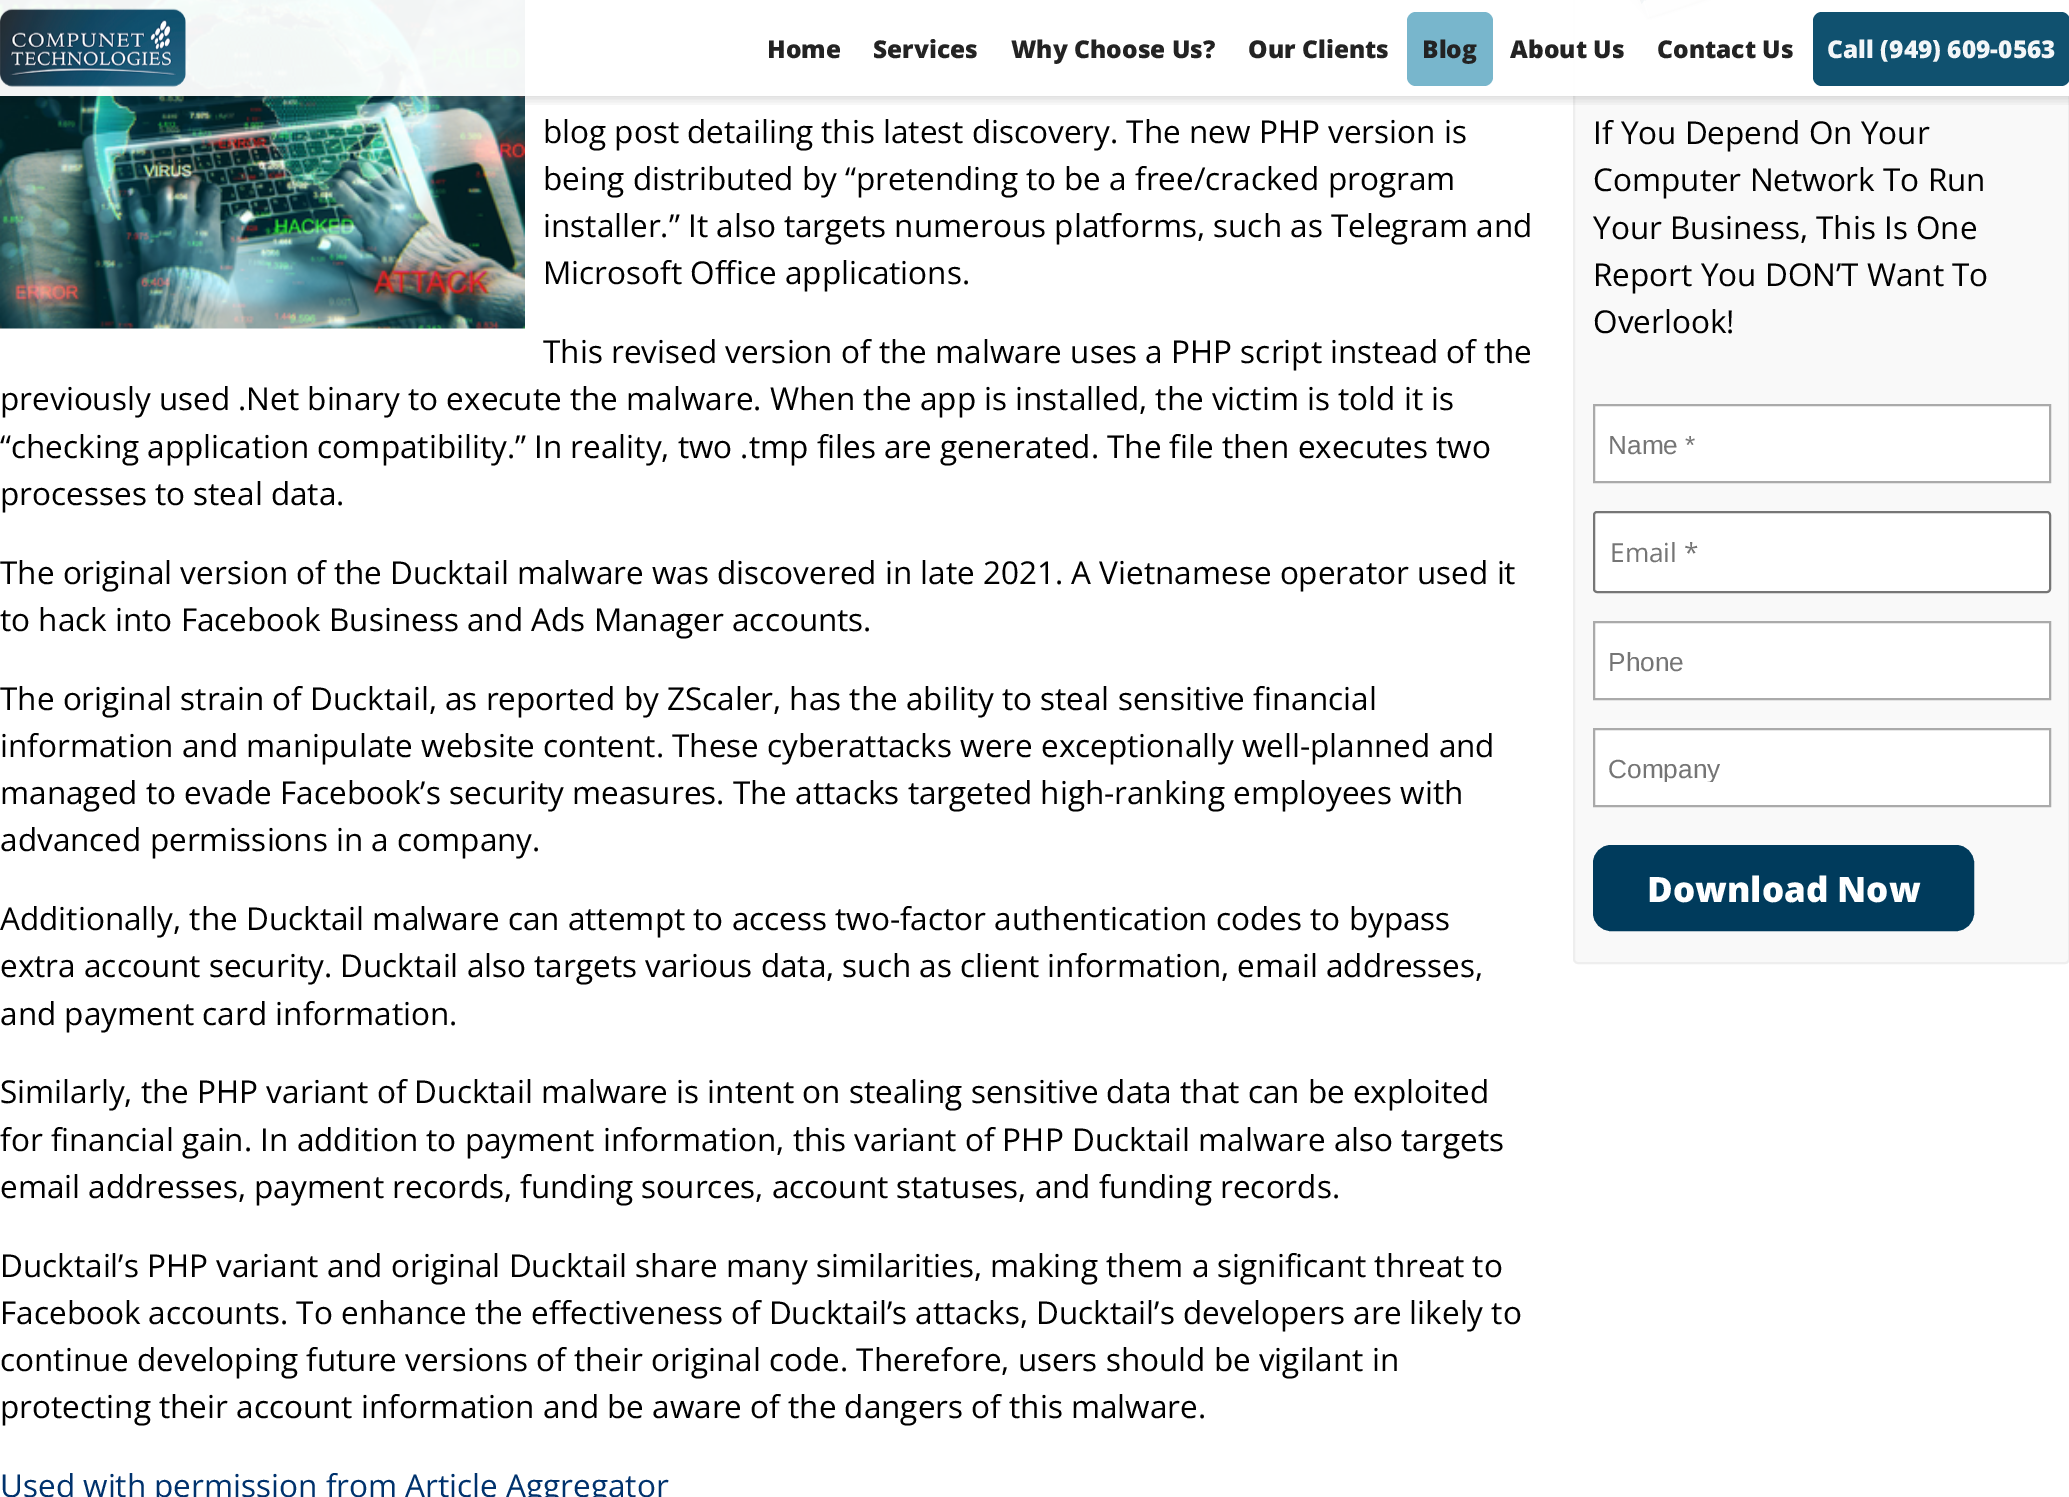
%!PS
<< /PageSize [2069 1497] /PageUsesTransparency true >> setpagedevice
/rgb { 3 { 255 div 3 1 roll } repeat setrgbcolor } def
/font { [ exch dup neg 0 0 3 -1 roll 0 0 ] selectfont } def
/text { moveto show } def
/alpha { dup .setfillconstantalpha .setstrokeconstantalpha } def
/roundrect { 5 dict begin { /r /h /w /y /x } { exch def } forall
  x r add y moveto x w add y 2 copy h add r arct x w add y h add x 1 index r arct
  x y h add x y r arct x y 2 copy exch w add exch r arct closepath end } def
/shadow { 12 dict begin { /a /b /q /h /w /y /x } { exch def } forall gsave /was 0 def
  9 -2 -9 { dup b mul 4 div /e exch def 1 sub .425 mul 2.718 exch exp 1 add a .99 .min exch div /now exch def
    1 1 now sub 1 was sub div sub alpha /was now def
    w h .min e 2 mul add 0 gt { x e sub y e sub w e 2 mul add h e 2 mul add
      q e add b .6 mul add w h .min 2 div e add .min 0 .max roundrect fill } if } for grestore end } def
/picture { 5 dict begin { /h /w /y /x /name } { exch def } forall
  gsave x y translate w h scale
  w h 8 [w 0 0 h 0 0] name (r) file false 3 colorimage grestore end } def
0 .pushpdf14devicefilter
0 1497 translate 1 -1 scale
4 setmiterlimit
255 255 255 rgb
0 0 2069 1497 rectfill
(img_02.rgb) 0 0 525 329 picture
249 249 249 rgb
1574 -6 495 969 4 roundrect gsave fill grestore
238 238 238 rgb
2 setlinewidth
stroke
(img_03.rgb) 1630 0 81 20 picture
gsave
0 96 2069 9 rectclip
0 0 0 rgb
0 2 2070 96 0 6 0.19 shadow
grestore
0.95 alpha
255 255 255 rgb
0 0 2069 96 rectfill
1 alpha
(img_01.rgb) 0 8 186 79 picture
0.95 alpha
113 178 201 rgb
1407 12 86 74 9 roundrect fill
3 72 103 rgb
1813 12 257 74 9 roundrect fill
1 alpha
255 255 255 rgb
1594 405 moveto 456 0 rlineto 0 77 rlineto -456 0 rlineto closepath gsave fill grestore
170 170 170 rgb
stroke
255 255 255 rgb
1594 512 456 80 3 roundrect gsave fill grestore
118 118 118 rgb
stroke
255 255 255 rgb
1594 622 moveto 456 0 rlineto 0 77 rlineto -456 0 rlineto closepath gsave fill grestore
170 170 170 rgb
stroke
255 255 255 rgb
1594 729 moveto 456 0 rlineto 0 77 rlineto -456 0 rlineto closepath gsave fill grestore
170 170 170 rgb
stroke
0 59 92 rgb
1594 846 379 84 17 roundrect gsave fill grestore
stroke
/OpenSans-ExtraBold 24.5 font
35 35 35 rgb
(Home) 767 58 text
(Services) 873 58 text
(Why Choose Us?) 1011 58 text
(Our Clients) 1248 58 text
(Blog) 1422 58 text
(About Us) 1510 58 text
(Contact Us) 1657 58 text
243 246 248 rgb
(Call \(949\) 609-0563) 1827 58 text
/OpenSans-Regular 31.5 font
0 0 0 rgb
(blog post detailing this latest discovery. The new PHP version is) 543 143 text
(being distributed by “pretending to be a free/cracked program) 543 190 text
(installer.” It also targets numerous platforms, such as Telegram and) 543 237 text
(Microsoft Office applications.) 543 284 text
(This revised version of the malware uses a PHP script instead of the) 543 363 text
(previously used .Net binary to execute the malware. When the app is installed, the victim is told it is) 0 410 text
(“checking application compatibility.” In reality, two .tmp files are generated. The file then executes two) 0 458 text
(processes to steal data.) 0 505 text
(The original version of the Ducktail malware was discovered in late 2021. A Vietnamese operator used it) 0 584 text
(to hack into Facebook Business and Ads Manager accounts.) 0 631 text
(The original strain of Ducktail, as reported by ZScaler, has the ability to steal sensitive financial) 0 710 text
(information and manipulate website content. These cyberattacks were exceptionally well-planned and) 0 757 text
(managed to evade Facebook’s security measures. The attacks targeted high-ranking employees with) 0 804 text
(advanced permissions in a company.) 0 851 text
(Additionally, the Ducktail malware can attempt to access two-factor authentication codes to bypass) 0 930 text
(extra account security. Ducktail also targets various data, such as client information, email addresses,) 0 977 text
(and payment card information.) 0 1025 text
(Similarly, the PHP variant of Ducktail malware is intent on stealing sensitive data that can be exploited) 0 1103 text
(for financial gain. In addition to payment information, this variant of PHP Ducktail malware also targets) 0 1151 text
(email addresses, payment records, funding sources, account statuses, and funding records.) 0 1198 text
(Ducktail’s PHP variant and original Ducktail share many similarities, making them a significant threat to) 0 1277 text
(Facebook accounts. To enhance the effectiveness of Ducktail’s attacks, Ducktail’s developers are likely to) 0 1324 text
(continue developing future versions of their original code. Therefore, users should be vigilant in) 0 1371 text
(protecting their account information and be aware of the dangers of this malware.) 0 1418 text
0 50 109 rgb
(Used with permission from Article Aggregator) 0 1497 text
0 0 0 rgb
(If You Depend On Your) 1593 144 text
(Computer Network To Run) 1593 191 text
(Your Business, This Is One) 1593 239 text
(Report You DON’T Want To) 1593 286 text
(Overlook!) 1593 333 text
/LiberationSans-Regular 26.25 font
117 117 117 rgb
(Name *) 1608 454 text
/OpenSans-Regular 26.25 font
(Email *) 1610 562 text
/LiberationSans-Regular 26.25 font
(Phone) 1608 671 text
gsave
1608 753 427 29 rectclip
(Company) 1608 778 text
grestore
/OpenSans-ExtraBold 35 font
255 255 255 rgb
(Download Now) 1647 902 text
.poppdf14devicefilter showpage
